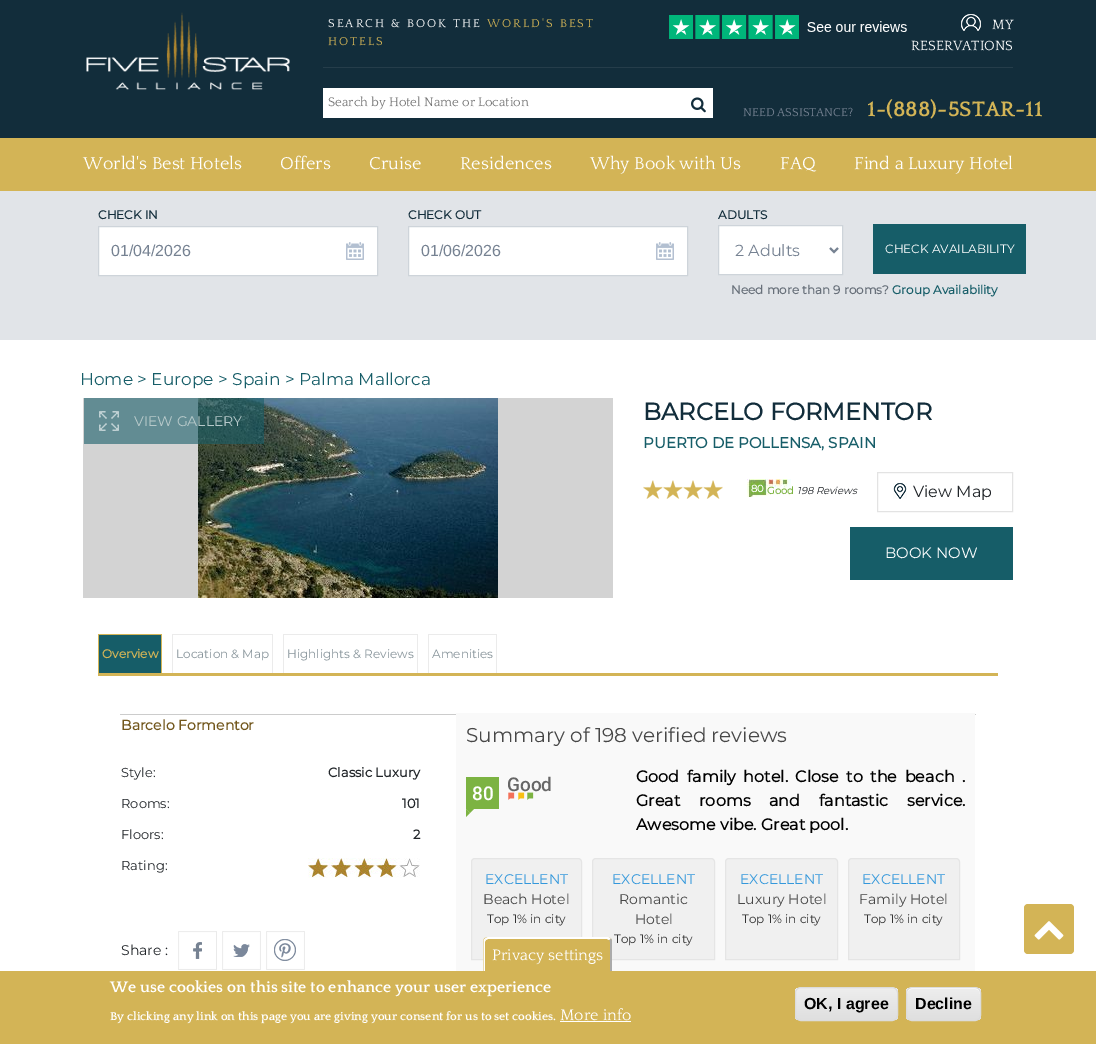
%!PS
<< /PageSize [1096 1044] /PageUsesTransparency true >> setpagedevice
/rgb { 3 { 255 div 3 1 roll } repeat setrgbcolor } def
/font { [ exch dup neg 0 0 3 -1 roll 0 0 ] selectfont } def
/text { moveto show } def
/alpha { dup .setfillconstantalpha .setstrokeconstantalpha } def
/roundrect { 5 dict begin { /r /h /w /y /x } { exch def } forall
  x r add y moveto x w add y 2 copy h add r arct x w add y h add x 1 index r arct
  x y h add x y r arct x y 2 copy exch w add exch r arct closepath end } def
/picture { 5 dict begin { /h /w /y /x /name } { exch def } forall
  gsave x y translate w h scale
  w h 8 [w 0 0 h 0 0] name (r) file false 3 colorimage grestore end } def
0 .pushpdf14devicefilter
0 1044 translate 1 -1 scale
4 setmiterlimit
255 255 255 rgb
0 0 1096 1044 rectfill
18 45 59 rgb
0 0 1096 138 rectfill
(img_01.rgb) 86 12 204 78 picture
37 61 74 rgb
323 67 690 1 rectfill
(img_02.rgb) 669 15 238 24 picture
(img_03.rgb) 961 14 20 17 picture
255 255 255 rgb
323 88 390 30 rectfill
(img_04.rgb) 691 97 15 16 picture
211 180 86 rgb
0 138 1096 53 rectfill
225 228 232 rgb
0 191 1096 149 rectfill
255 255 255 rgb
99 227 278 48 rectfill
(img_05.rgb) 346 242 18 18 picture
206 212 218 rgb
98.5 226.5 279 49 rectstroke
255 255 255 rgb
409 227 278 48 rectfill
(img_05.rgb) 656 242 18 18 picture
206 212 218 rgb
408.5 226.5 279 49 rectstroke
255 255 255 rgb
718.5 225.5 moveto 124 0 rlineto 0 49 rlineto -124 0 rlineto closepath gsave fill grestore
206 212 218 rgb
stroke
118 130 146 rgb
2 setlinewidth
830 248 moveto 4 4 rlineto 4 -4 rlineto stroke
22 93 104 rgb
873 224 153 50 rectfill
211 211 211 rgb
83 398 530 200 rectfill
(img_06.rgb) 198 398 300 200 picture
0.6 alpha
22 93 104 rgb
84 398 180 46 rectfill
1 alpha
(img_07.rgb) 99 411 20 20 picture
(img_08.rgb) 643 480 80 19 picture
(img_09.rgb) 747 479 44 18 picture
(img_10.rgb) 893 483 14 16 picture
227 227 227 rgb
1 setlinewidth
877.5 472.5 135 39 rectstroke
22 93 104 rgb
850 527 163 53 rectfill
211 180 86 rgb
98 673 900 3 rectfill
22 93 104 rgb
99 635 62 38 rectfill
211 180 86 rgb
98 634 64 1 rectfill
161 634 1 42 rectfill
98 634 1 42 rectfill
235 235 235 rgb
172 634 101 1 rectfill
272 634 1 39 rectfill
172 634 1 39 rectfill
283 634 135 1 rectfill
417 634 1 39 rectfill
283 634 1 39 rectfill
428 634 69 1 rectfill
496 634 1 39 rectfill
428 634 1 39 rectfill
204 204 204 rgb
120 714 856 1 rectfill
(img_11.rgb) 308 858 112 20 picture
(img_12.rgb) 178 931 39 39 picture
(img_13.rgb) 222 931 39 39 picture
(img_14.rgb) 266 931 39 39 picture
249 249 249 rgb
456 713 519 258 rectfill
(img_15.rgb) 508 792 7 8 picture
(img_16.rgb) 518 792 7 8 picture
(img_17.rgb) 527 792 7 8 picture
124 179 66 rgb
466 777 33 32 rectfill
466 809 moveto 8 0 rlineto -4 4 rlineto closepath fill
466 817 moveto 0 -8 rlineto 4 4 rlineto closepath fill
240 240 240 rgb
475 858.5 moveto 103 0 rlineto 2 0 3.5 1.5 3.5 3.5 rcurveto 0 97.5 rlineto -110 0 rlineto 0 -97.5 rlineto 0 -2 1.5 -3.5 3.5 -3.5 rcurveto closepath gsave fill grestore
229 229 229 rgb
stroke
240 240 240 rgb
596 858.5 moveto 115 0 rlineto 2 0 3.5 1.5 3.5 3.5 rcurveto 0 97.5 rlineto -122 0 rlineto 0 -97.5 rlineto 0 -2 1.5 -3.5 3.5 -3.5 rcurveto closepath gsave fill grestore
229 229 229 rgb
stroke
240 240 240 rgb
729 858.5 moveto 105 0 rlineto 2 0 3.5 1.5 3.5 3.5 rcurveto 0 97.5 rlineto -112 0 rlineto 0 -97.5 rlineto 0 -2 1.5 -3.5 3.5 -3.5 rcurveto closepath gsave fill grestore
229 229 229 rgb
stroke
240 240 240 rgb
852 858.5 moveto 104 0 rlineto 2 0 3.5 1.5 3.5 3.5 rcurveto 0 97.5 rlineto -111 0 rlineto 0 -97.5 rlineto 0 -2 1.5 -3.5 3.5 -3.5 rcurveto closepath gsave fill grestore
229 229 229 rgb
stroke
211 180 86 rgb
1024 904 50 50 4 roundrect fill
(img_18.rgb) 1034 921 30 19 picture
0 971 1096 73 rectfill
488 937 moveto 119 0 rlineto 3 0 5 2 5 5 rcurveto 0 29 rlineto -129 0 rlineto 0 -29 rlineto 0 -3 2 -5 5 -5 rcurveto closepath fill
255 255 255 rgb
488 937 moveto -3 1 rlineto 1 2 rlineto 2 -1 rlineto 119 0 rlineto 2 1 rlineto 2 -1 rlineto -1 -1 -2 -2 -4 -2 rcurveto closepath fill
170 170 170 rgb
610 971 moveto 2 0 rlineto 0 -29 rlineto 0 -1.5 -0.5 -2.5 -1 -3.5 rcurveto -1.5 1.5 rlineto 0.5 0.5 0.5 1 0.5 2 rcurveto closepath fill
255 255 255 rgb
483.5 971 moveto 0 -31 rlineto 1.5 -1.5 rlineto 1 1.5 rlineto -1 1.5 rlineto 0 29.5 rlineto closepath fill
560 1021 71 1 rectfill
gsave
795 987 103 34 6 roundrect clip newpath
gsave 795 988 moveto 103 0 rlineto 0 32 rlineto -103 0 rlineto closepath clip newpath
<< /ShadingType 2 /ColorSpace /DeviceRGB /Coords [847 988 847 1020] /Extend [true true] /Function << /FunctionType 3 /Domain [0 1] /Functions [<< /FunctionType 2 /Domain [0 1] /C0 [0.929 0.929 0.929] /C1 [0.929 0.929 0.929] /N 1 >> << /FunctionType 2 /Domain [0 1] /C0 [0.929 0.929 0.929] /C1 [0.875 0.875 0.875] /N 1 >>] /Bounds [0.05] /Encode [0 1 0 1] >> >> shfill grestore
grestore
220 220 220 rgb
795.5 987.5 102 33 5.5 roundrect stroke
gsave
906 987 75 34 6 roundrect clip newpath
gsave 906 988 moveto 75 0 rlineto 0 32 rlineto -75 0 rlineto closepath clip newpath
<< /ShadingType 2 /ColorSpace /DeviceRGB /Coords [944 988 944 1020] /Extend [true true] /Function << /FunctionType 3 /Domain [0 1] /Functions [<< /FunctionType 2 /Domain [0 1] /C0 [0.929 0.929 0.929] /C1 [0.929 0.929 0.929] /N 1 >> << /FunctionType 2 /Domain [0 1] /C0 [0.929 0.929 0.929] /C1 [0.875 0.875 0.875] /N 1 >>] /Bounds [0.05] /Encode [0 1 0 1] >> >> shfill grestore
grestore
255 255 255 rgb
912 989 moveto 63 0 rlineto 3 0 5 2 5 5 rcurveto 0 -8 -10 -6 -16 -6 rcurveto -42 0 rlineto -5 0 -15 -2 -15 6 rcurveto 0 -3 2 -5 5 -5 rcurveto closepath fill
220 220 220 rgb
906.5 987.5 74 33 5.5 roundrect stroke
/Quattrocento-Regular 12 font
255 255 255 rgb
328 27 moveto 2 0 (SEARCH & BOOK THE) ashow
211 180 86 rgb
487 27 moveto 2 0 (WORLD'S BEST) ashow
328 45 moveto 2 0 (HOTELS) ashow
/Quattrocento-Regular 14 font
255 255 255 rgb
(MY) 992 29 text
(RESERVATIONS) 911 50 text
/Quattrocento-Regular 13 font
117 117 117 rgb
(Search by Hotel Name or Location) 328 106 text
/Quattrocento-Regular 12 font
118 130 146 rgb
(NEED ASSISTANCE?) 743 116 text
/Quattrocento-Bold 22 font
211 180 86 rgb
(1-\(888\)-5STAR-11) 867 116 text
/Quattrocento-Regular 18 font
255 255 255 rgb
(World's Best Hotels) 83 169 text
(Offers) 280 169 text
(Cruise) 369 169 text
(Residences) 460 169 text
(Why Book with Us) 590 169 text
(FAQ) 780 169 text
(Find a Luxury Hotel) 854 169 text
/Montserrat-Bold 12 font
18 45 59 rgb
(CHECK IN) 98 219 text
/LiberationSans-Regular 16 font
118 130 146 rgb
(01/04/2026) 111 256 text
/Montserrat-Bold 12 font
18 45 59 rgb
(CHECK OUT) 408 219 text
/LiberationSans-Regular 16 font
118 130 146 rgb
(01/06/2026) 421 256 text
/Montserrat-Bold 12 font
18 45 59 rgb
(ADULTS) 718 219 text
/Montserrat-Regular 16 font
118 130 146 rgb
(2 Adults) 735 256 text
/Montserrat-Regular 12 font
255 255 255 rgb
(CHECK AVAILABILITY) 885 253 text
/Montserrat-Bold 12 font
104 112 122 rgb
(Need more than 9 rooms?) 731 294 text
22 93 104 rgb
(Group Availability) 892 294 text
/Montserrat-Regular 17 font
(Home > Europe > Spain > Palma Mallorca) 80 385 text
/Montserrat-Regular 14 font
183 201 202 rgb
(VIEW GALLERY) 134 426 text
/Montserrat-Bold 24 font
18 45 59 rgb
(BARCELO FORMENTOR) 643 420 text
/Montserrat-Bold 15 font
22 93 104 rgb
(PUERTO DE POLLENSA, SPAIN) 643 448 text
/Montserrat-Bold 10 font
255 255 255 rgb
(80) 751 492 text
124 179 66 rgb
(Good) 767 494 text
/Montserrat-Italic 10 font
33 37 41 rgb
(198 Reviews) 797 494 text
/Montserrat-Regular 16 font
(View Map) 913 497 text
/Montserrat-Regular 15 font
255 255 255 rgb
(BOOK NOW) 885 558 text
/Montserrat-Bold 12 font
211 180 86 rgb
(Overview) 102 658 text
/Montserrat-Regular 12 font
136 149 155 rgb
(Location & Map) 176 658 text
(Highlights & Reviews) 287 658 text
(Amenities) 432 658 text
/Montserrat-Bold 14 font
114 87 29 rgb
(Barcelo Formentor) 121 730 text
/Montserrat-Regular 13 font
33 37 41 rgb
(Style:) 121 777 text
/Montserrat-Bold 13 font
(Classic Luxury) 328 777 text
/Montserrat-Regular 13 font
(Rooms:) 121 808 text
/Montserrat-Bold 13 font
(101) 402 808 text
/Montserrat-Regular 13 font
(Floors:) 121 839 text
/Montserrat-Bold 13 font
(2) 413 839 text
/Montserrat-Regular 13 font
(Rating:) 121 870 text
/Montserrat-Regular 14 font
(Share :) 121 955 text
/Montserrat-Regular 20 font
71 71 71 rgb
(Summary of 198 verified reviews) 466 742 text
/Roboto-Medium 19 font
102 102 102 rgb
(Good) 507 791 text
255 255 255 rgb
(80) 472 800 text
/Montserrat-Bold 16 font
0 0 0 rgb
636 782 moveto 3.25 0 32 (Good family hotel. Close to the beach .) widthshow
636 806 moveto 14.5 0 32 (Great rooms and fantastic service.) widthshow
(Awesome vibe. Great pool.) 636 830 text
/Montserrat-Regular 14 font
52 152 219 rgb
(EXCELLENT) 485 884 text
71 71 71 rgb
(Beach Hotel) 483 904 text
/Montserrat-Regular 12 font
51 51 51 rgb
(Top 1% in city) 487 923 text
/Montserrat-Regular 14 font
52 152 219 rgb
(EXCELLENT) 612 884 text
71 71 71 rgb
(Romantic) 619 904 text
(Hotel) 635 924 text
/Montserrat-Regular 12 font
51 51 51 rgb
(Top 1% in city) 614 943 text
/Montserrat-Regular 14 font
52 152 219 rgb
(EXCELLENT) 740 884 text
71 71 71 rgb
(Luxury Hotel) 737 904 text
/Montserrat-Regular 12 font
51 51 51 rgb
(Top 1% in city) 742 923 text
/Montserrat-Regular 14 font
52 152 219 rgb
(EXCELLENT) 862 884 text
71 71 71 rgb
(Family Hotel) 859 904 text
/Montserrat-Regular 12 font
51 51 51 rgb
(Top 1% in city) 864 923 text
/Quattrocento-Regular 16 font
255 255 255 rgb
(Privacy settings) 492 960 text
/Quattrocento-Bold 16 font
(We use cookies on this site to enhance your user experience) 110 992 text
/Quattrocento-Bold 12 font
(By clicking any link on this page you are giving your consent for us to set cookies.) 110 1020 text
/Quattrocento-Regular 16 font
(More info) 560 1020 text
/LiberationSans-Bold 16 font
0 0 0 rgb
(OK, I agree) 804 1009 text
(Decline) 915 1009 text
.poppdf14devicefilter showpage
